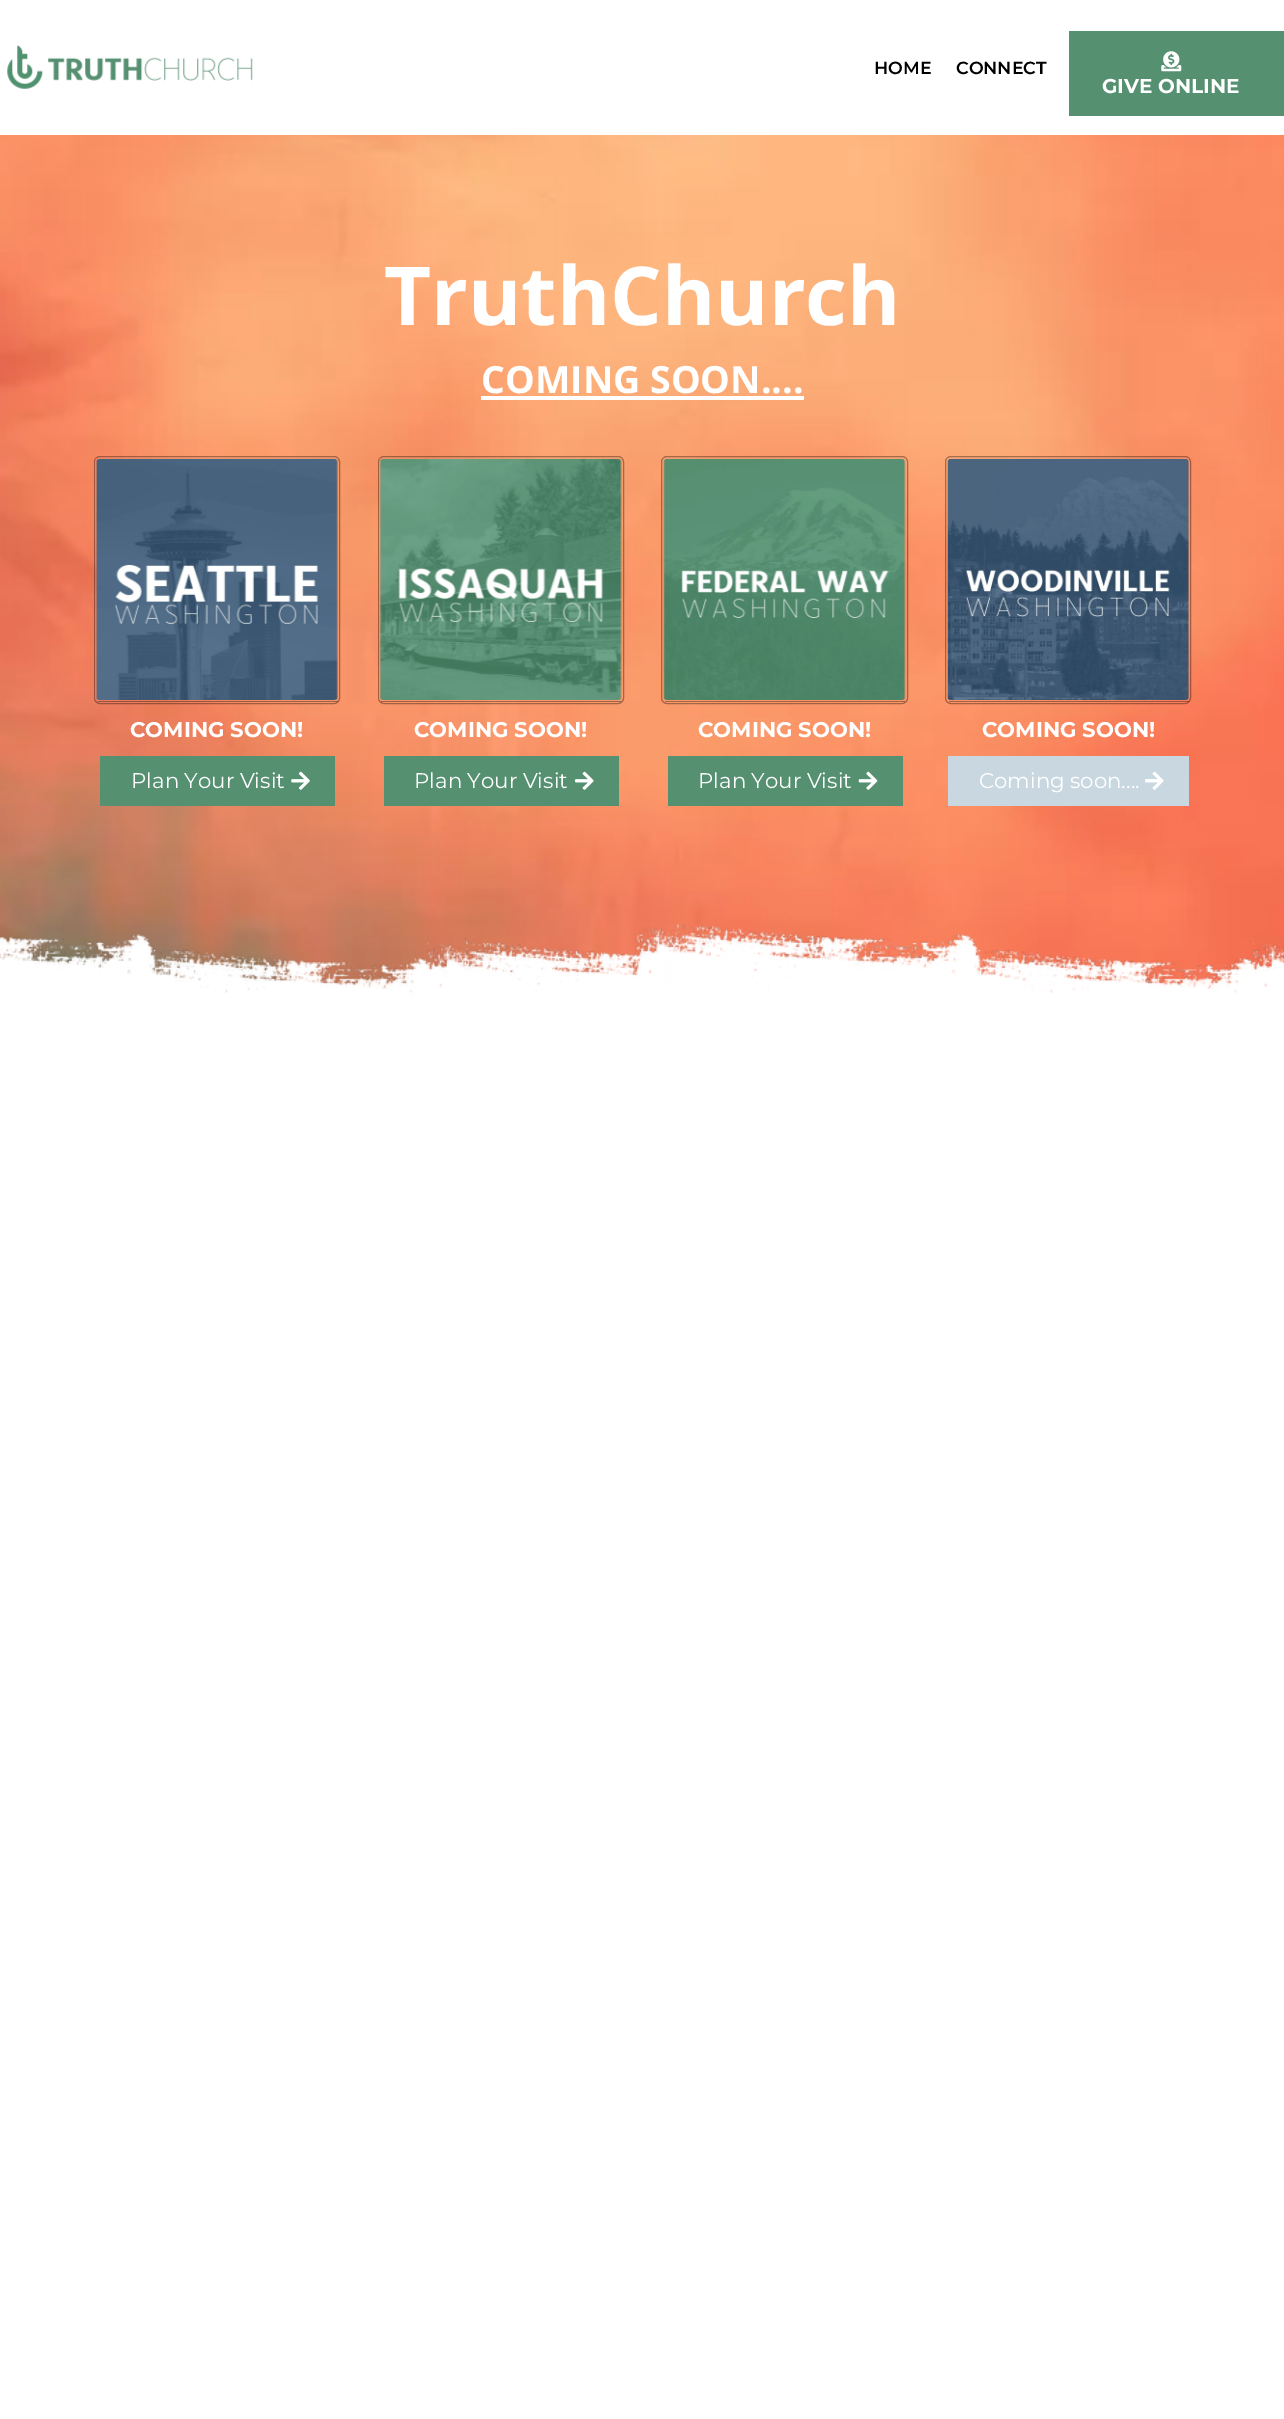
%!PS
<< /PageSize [1284 2419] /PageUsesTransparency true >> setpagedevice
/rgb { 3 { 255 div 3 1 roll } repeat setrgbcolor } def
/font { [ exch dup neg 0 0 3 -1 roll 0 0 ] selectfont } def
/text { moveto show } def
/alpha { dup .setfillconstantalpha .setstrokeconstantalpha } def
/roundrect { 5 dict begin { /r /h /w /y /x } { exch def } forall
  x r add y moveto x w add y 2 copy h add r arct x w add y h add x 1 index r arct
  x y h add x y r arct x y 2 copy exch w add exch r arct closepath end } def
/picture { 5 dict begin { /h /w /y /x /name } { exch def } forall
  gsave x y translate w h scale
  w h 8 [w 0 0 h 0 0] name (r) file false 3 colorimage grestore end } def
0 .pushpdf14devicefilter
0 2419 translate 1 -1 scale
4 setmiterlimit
255 255 255 rgb
0 0 1284 2419 rectfill
(img_01.rgb) 7 45 246 44 picture
85 144 113 rgb
1069 31 215 85 rectfill
(img_02.rgb) 1161 51 21 21 picture
(img_03.rgb) 0 135 1284 858 picture
255 255 255 rgb
481 396 323 4 rectfill
0.35 alpha
0 0 0 rgb
94.5 456.5 245 247 5.5 roundrect stroke
1 alpha
(img_04.rgb) 95 458 243 242 picture
0.35 alpha
98 701 240 1 rectfill
1 alpha
85 144 113 rgb
100 756 235 50 rectfill
(img_05.rgb) 291 771 19 19 picture
0.35 alpha
0 0 0 rgb
378.5 456.5 245 247 5.5 roundrect stroke
1 alpha
(img_06.rgb) 379 458 243 242 picture
0.35 alpha
381 701 240 1 rectfill
1 alpha
85 144 113 rgb
384 756 235 50 rectfill
(img_07.rgb) 575 771 19 19 picture
0.35 alpha
0 0 0 rgb
661.5 456.5 246 247 5.5 roundrect stroke
1 alpha
(img_08.rgb) 663 458 243 242 picture
0.35 alpha
665 701 240 1 rectfill
1 alpha
85 144 113 rgb
668 756 235 50 rectfill
(img_09.rgb) 858 771 20 19 picture
0.35 alpha
0 0 0 rgb
945.5 456.5 245 247 5.5 roundrect stroke
1 alpha
(img_10.rgb) 947 458 242 242 picture
0.35 alpha
949 701 240 1 rectfill
1 alpha
201 216 224 rgb
948 756 241 50 rectfill
(img_11.rgb) 1145 771 19 19 picture
(img_12.rgb) 0 915 1284 125 picture
/Montserrat-SemiBold 17.5 font
0 0 0 rgb
(HOME) 874 74 text
(CONNECT) 956 74 text
/Montserrat-Bold 20 font
255 255 255 rgb
(GIVE ONLINE) 1102 93 text
/OpenSans-Bold 81.25 font
(TruthChurch) 384 325 text
/OpenSans-Bold 37.5 font
(COMING SOON....) 481 393 text
/Montserrat-Bold 21.25 font
(COMING SOON!) 130 737 text
/Montserrat-Regular 21.25 font
(Plan Your Visit) 131 788 text
/Montserrat-Bold 21.25 font
(COMING SOON!) 414 737 text
/Montserrat-Regular 21.25 font
(Plan Your Visit) 414 788 text
/Montserrat-Bold 21.25 font
(COMING SOON!) 698 737 text
/Montserrat-Regular 21.25 font
(Plan Your Visit) 698 788 text
/Montserrat-Bold 21.25 font
(COMING SOON!) 982 737 text
/Montserrat-Regular 21.25 font
(Coming soon....) 979 788 text
.poppdf14devicefilter showpage
